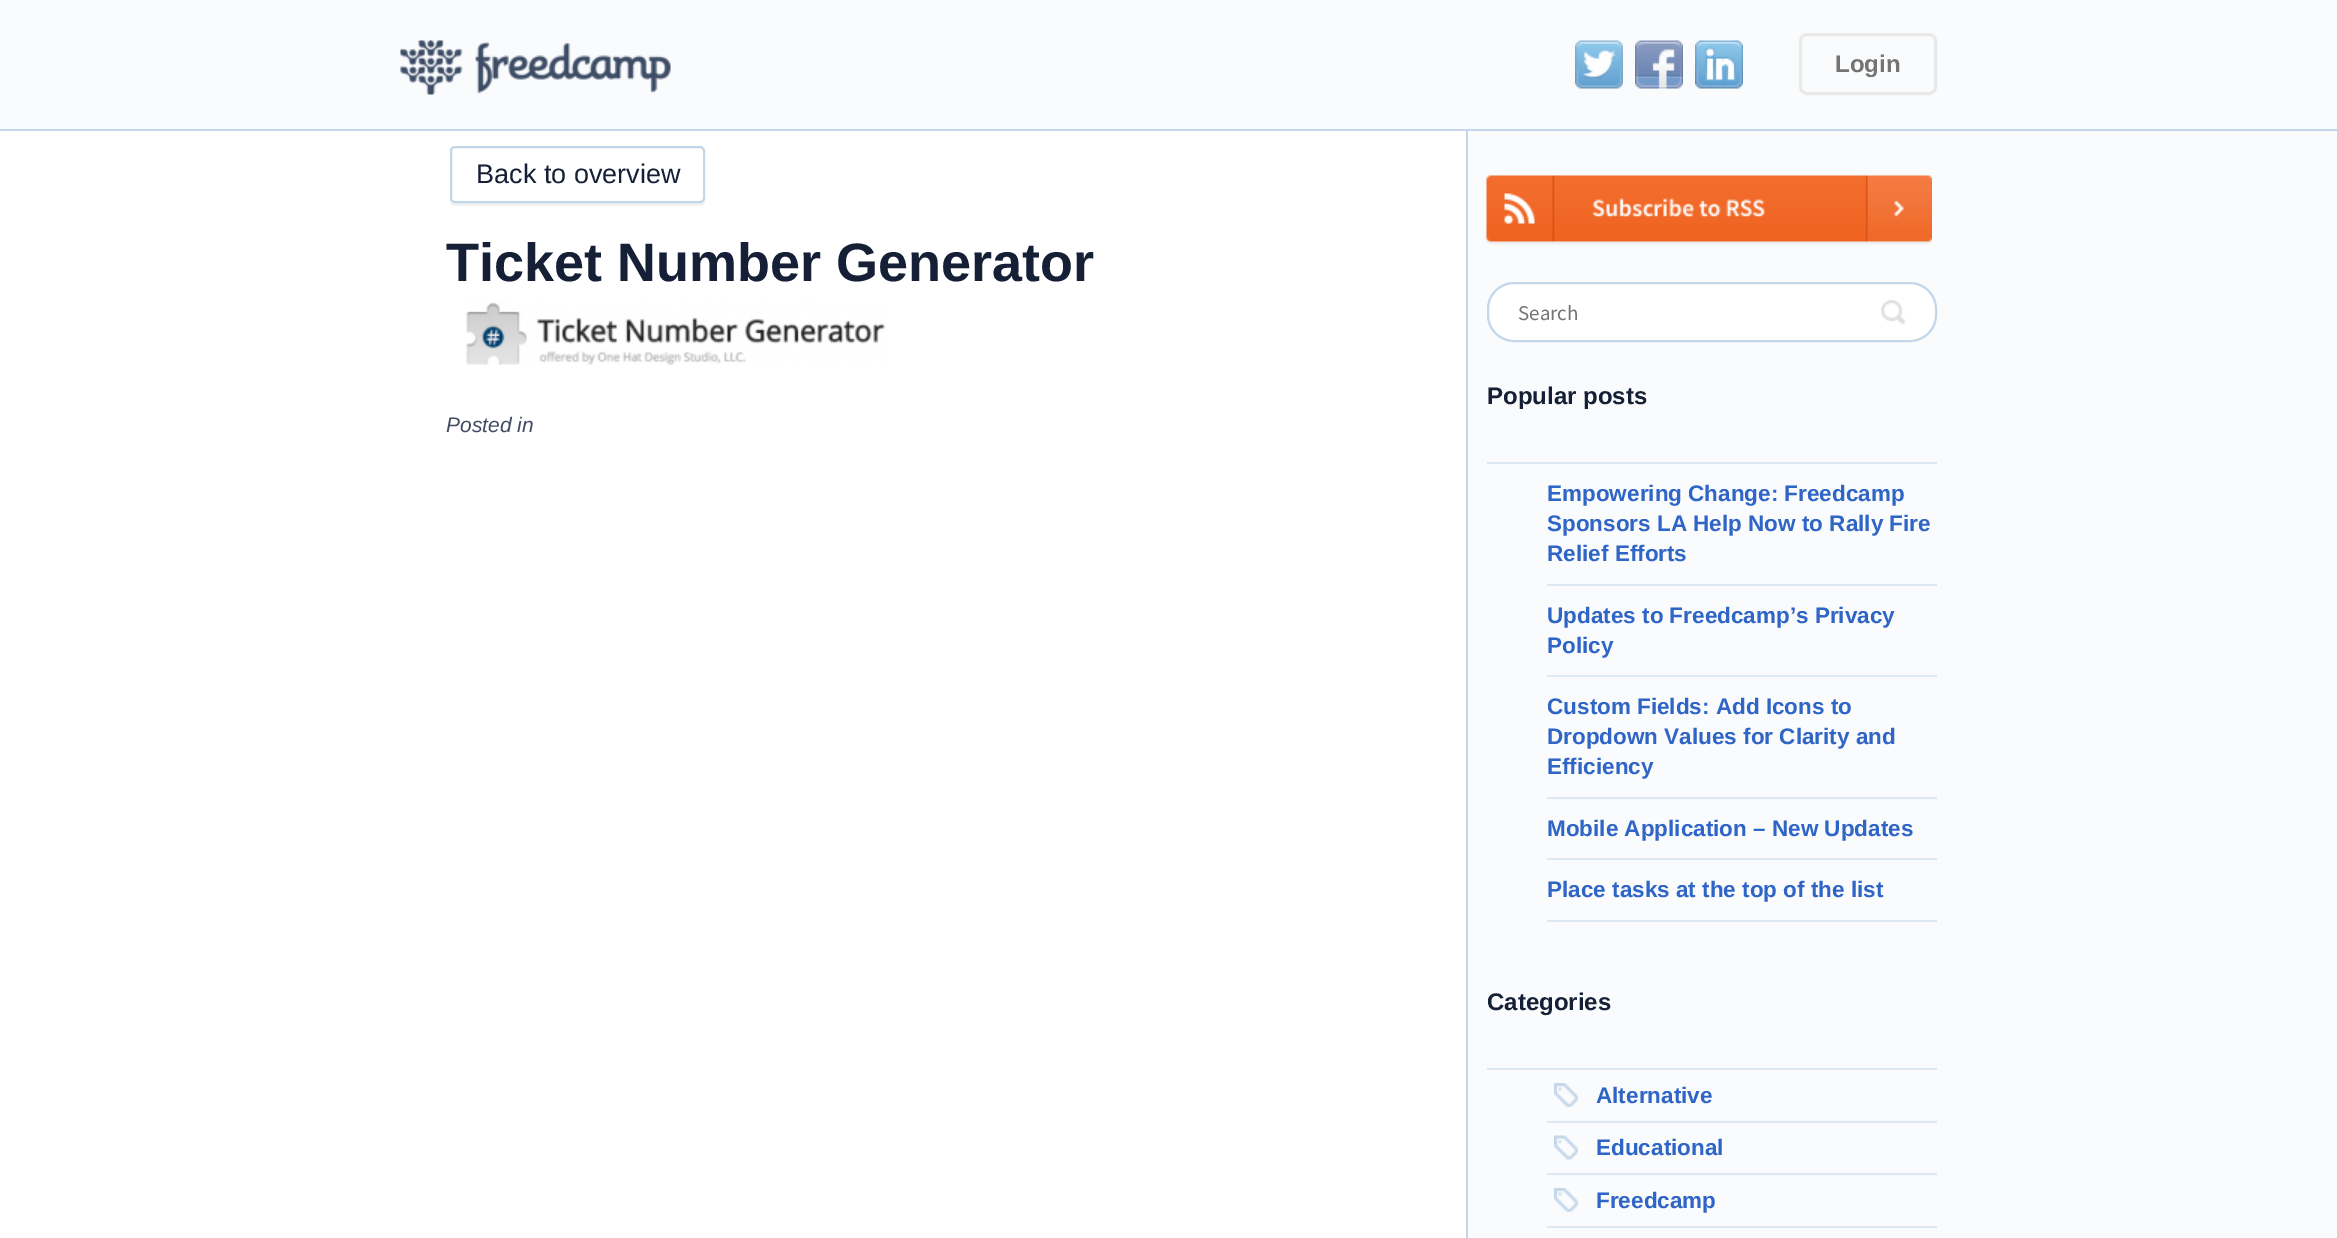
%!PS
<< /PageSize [2337 1238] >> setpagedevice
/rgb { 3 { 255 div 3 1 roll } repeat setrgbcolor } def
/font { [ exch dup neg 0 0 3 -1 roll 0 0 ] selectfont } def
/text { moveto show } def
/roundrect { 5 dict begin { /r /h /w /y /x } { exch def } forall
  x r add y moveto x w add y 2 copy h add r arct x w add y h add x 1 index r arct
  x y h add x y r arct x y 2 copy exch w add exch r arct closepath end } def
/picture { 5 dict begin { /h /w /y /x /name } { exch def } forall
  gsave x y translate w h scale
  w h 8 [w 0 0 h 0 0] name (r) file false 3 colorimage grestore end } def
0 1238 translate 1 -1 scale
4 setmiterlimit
250 251 252 rgb
0 0 2337 1238 rectfill
195 214 234 rgb
0 129 2337 2 rectfill
(img_01.rgb) 400 40 271 55 picture
(img_02.rgb) 1575 40 48 49 picture
(img_03.rgb) 1635 40 48 49 picture
(img_04.rgb) 1695 40 48 49 picture
233 233 233 rgb
3 setlinewidth
1800.5 34.5 135 59 6.5 roundrect stroke
255 255 255 rgb
0 131 1466 1107 rectfill
242 242 242 rgb
450 198 moveto 0 3 rlineto 0 3 2 5 5 5 rcurveto 245 0 rlineto 3 0 5 -2 5 -5 rcurveto 0 -3 rlineto 0 2 -2 4 -5 4 rcurveto -246 0 rlineto -2 0 -4 -2 -4 -4 rcurveto closepath fill
195 214 234 rgb
2 setlinewidth
451 147 253 55 4 roundrect stroke
(img_05.rgb) 466 302 420 63 picture
1466 131 2 1107 rectfill
(img_06.rgb) 1486 175 446 70 picture
255 255 255 rgb
1488 283 448 58 26 roundrect gsave fill grestore
195 214 234 rgb
stroke
(img_07.rgb) 1881 299 25 26 picture
222 232 243 rgb
1487 462 450 2 rectfill
1547 584 390 2 rectfill
1547 675 390 2 rectfill
1547 797 390 2 rectfill
1547 858 390 2 rectfill
1547 920 390 2 rectfill
1487 1068 450 2 rectfill
1547 1121 390 2 rectfill
(img_08.rgb) 1554 1083 24 24 picture
1547 1173 390 2 rectfill
(img_09.rgb) 1554 1135 24 25 picture
1547 1226 390 2 rectfill
(img_08.rgb) 1554 1188 24 24 picture
/LiberationSans-Bold 24 font
116 116 116 rgb
(Login) 1835 72 text
/LiberationSans-Regular 27 font
21 31 53 rgb
(Back to overview) 476 183 text
/LiberationSans-Bold 54 font
(Ticket Number Generator) 446 281 text
/LiberationSans-Italic 21 font
65 75 97 rgb
(Posted in) 446 432 text
/SourceSansPro-Regular 21 font
116 116 116 rgb
(Search) 1518 320 text
/LiberationSans-Bold 24 font
21 31 53 rgb
(Popular posts) 1487 404 text
/LiberationSans-Bold 22.5 font
47 101 198 rgb
(Empowering Change: Freedcamp) 1547 501 text
(Sponsors LA Help Now to Rally Fire) 1547 531 text
(Relief Efforts) 1547 561 text
(Updates to Freedcamp’s Privacy) 1547 623 text
(Policy) 1547 653 text
(Custom Fields: Add Icons to) 1547 714 text
(Dropdown Values for Clarity and) 1547 744 text
(Efficiency) 1547 774 text
(Mobile Application – New Updates) 1547 836 text
(Place tasks at the top of the list) 1547 897 text
/LiberationSans-Bold 24 font
21 31 53 rgb
(Categories) 1487 1010 text
/LiberationSans-Bold 22.5 font
47 101 198 rgb
(Alternative) 1596 1103 text
(Educational) 1596 1155 text
(Freedcamp) 1596 1208 text
showpage
